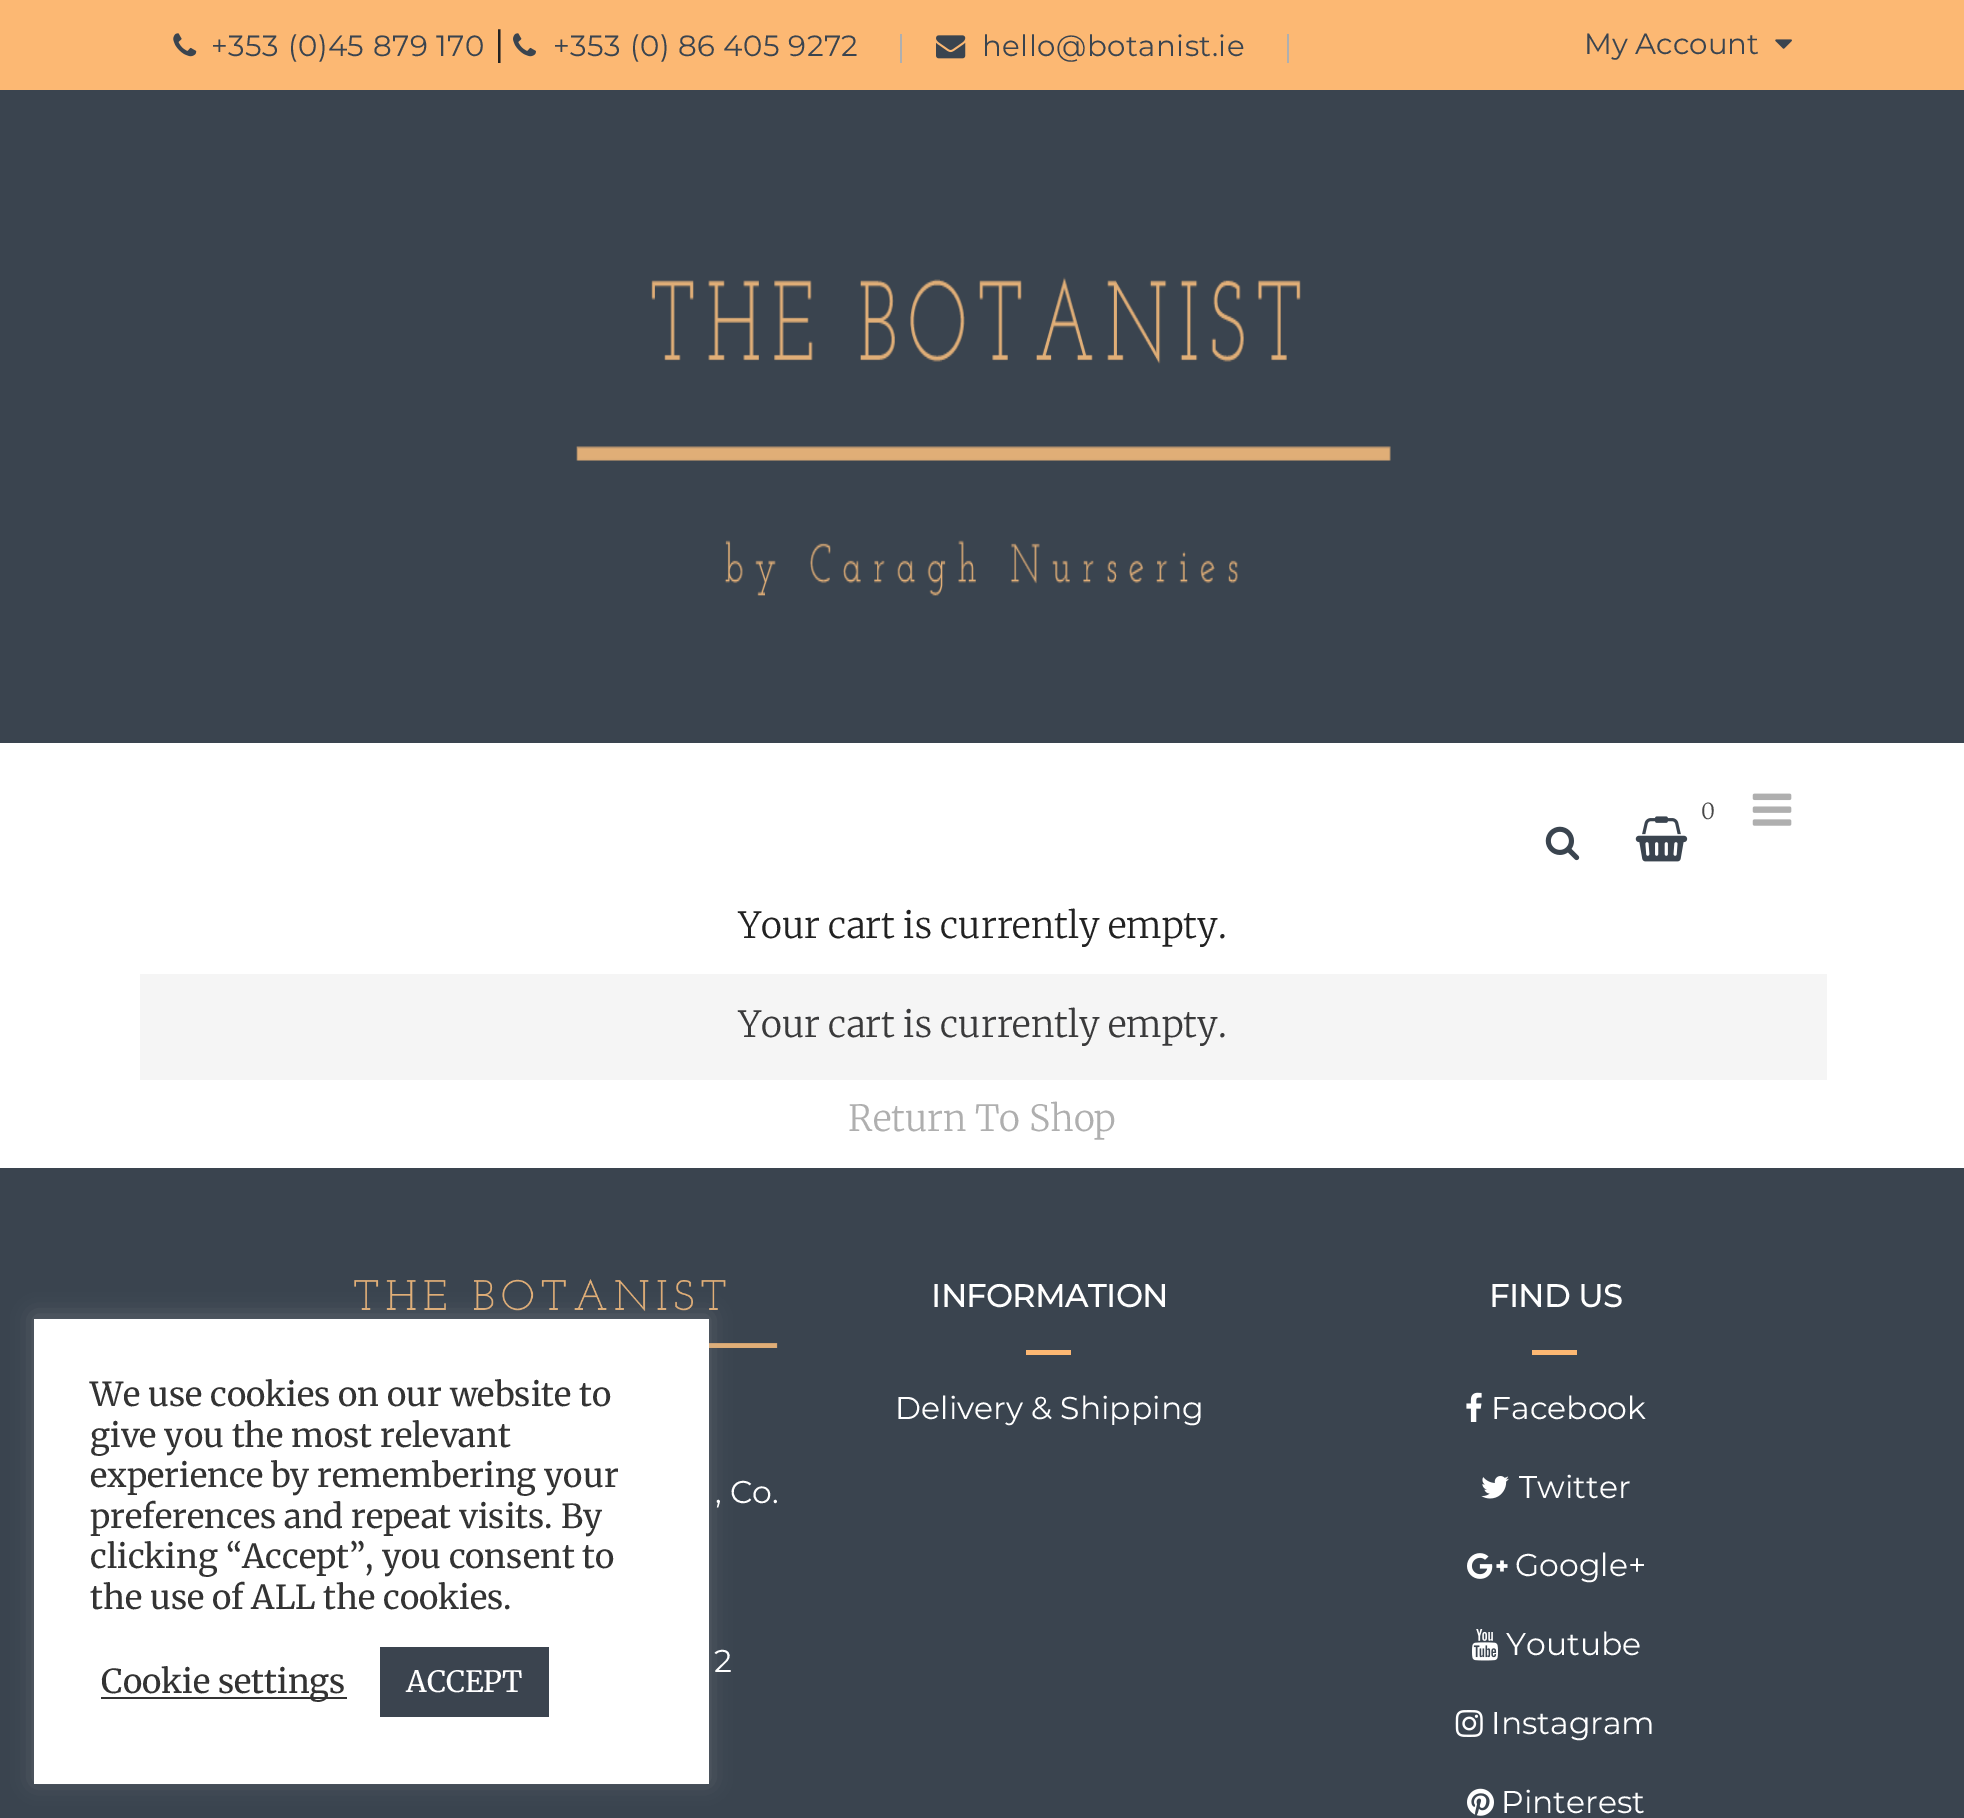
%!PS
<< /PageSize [1964 1818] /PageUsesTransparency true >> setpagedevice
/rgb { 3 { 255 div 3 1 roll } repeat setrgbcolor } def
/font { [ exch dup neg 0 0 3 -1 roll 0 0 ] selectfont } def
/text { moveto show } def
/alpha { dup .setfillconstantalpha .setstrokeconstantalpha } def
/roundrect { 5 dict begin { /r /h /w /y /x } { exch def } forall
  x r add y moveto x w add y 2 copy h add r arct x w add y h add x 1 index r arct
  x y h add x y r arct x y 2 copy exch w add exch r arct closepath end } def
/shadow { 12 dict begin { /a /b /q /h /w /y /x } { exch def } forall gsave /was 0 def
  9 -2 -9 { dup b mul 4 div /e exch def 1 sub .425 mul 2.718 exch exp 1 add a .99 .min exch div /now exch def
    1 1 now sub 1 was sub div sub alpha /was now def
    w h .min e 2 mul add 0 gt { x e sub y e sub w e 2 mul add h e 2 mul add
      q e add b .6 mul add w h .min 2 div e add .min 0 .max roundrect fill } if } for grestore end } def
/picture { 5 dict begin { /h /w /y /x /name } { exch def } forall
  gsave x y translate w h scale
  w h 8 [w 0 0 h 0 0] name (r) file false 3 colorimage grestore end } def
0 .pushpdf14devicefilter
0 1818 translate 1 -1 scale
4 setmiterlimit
255 255 255 rgb
0 0 1964 1818 rectfill
252 184 115 rgb
0 0 1964 90 rectfill
(img_01.rgb) 173 33 24 24 picture
(img_02.rgb) 513 33 23 24 picture
175 175 175 rgb
900 34 2 29 rectfill
(img_03.rgb) 936 35 30 24 picture
1287 34 2 29 rectfill
(img_04.rgb) 1775 39 17 10 picture
58 68 79 rgb
0 90 1964 653 rectfill
(img_05.rgb) 576 277 815 319 picture
(img_06.rgb) 1635 816 53 46 picture
(img_07.rgb) 1545 826 35 35 picture
(img_08.rgb) 1752 793 40 33 picture
245 245 245 rgb
140 974 1687 106 rectfill
58 68 79 rgb
0 1168 1964 650 rectfill
(img_09.rgb) 311 1279 467 121 picture
252 184 115 rgb
1026 1350 45 5 rectfill
1532 1350 45 5 rectfill
(img_10.rgb) 1466 1392 16 30 picture
(img_11.rgb) 1481 1476 28 23 picture
(img_12.rgb) 1467 1553 41 26 picture
(img_13.rgb) 1472 1629 26 32 picture
(img_14.rgb) 1455 1710 28 27 picture
(img_15.rgb) 1467 1788 27 28 picture
172 171 171 rgb
34 1316 675 466 0 11 0.3 shadow
255 255 255 rgb
34 1319 675 465 rectfill
51 51 51 rgb
101 1697 246 2 rectfill
59 68 79 rgb
380 1647 169 70 rectfill
/Montserrat-Thin 29.25 font
58 68 79 rgb
211 56 moveto 0.5 0 (+353 \(0\)45 879 170) ashow
/Montserrat-Thin 36 font
34 34 34 rgb
(|) 494 56 text
/Montserrat-Thin 29.25 font
58 68 79 rgb
553 56 moveto 0.5 0 (+353 \(0\) 86 405 9272) ashow
982 56 moveto 0.5 0 (hello@botanist.ie) ashow
(My Account) 1584 54 text
/Merriweather-Light 22 font
72 72 72 rgb
(0) 1701 819 text
/Merriweather-Light 36 font
34 34 34 rgb
(Your cart is currently empty.) 738 938 text
58 58 59 rgb
(Your cart is currently empty.) 738 1037 text
175 175 175 rgb
(Return To Shop) 848 1131 text
/Montserrat-Thin 31.5 font
255 255 255 rgb
(, Co.) 715 1503 text
(2) 714 1672 text
/Montserrat-Bold 31.5 font
(INFORMATION) 931 1307 text
/Montserrat-Thin 31.5 font
(Delivery & Shipping) 895 1419 text
/Montserrat-Bold 31.5 font
(FIND US) 1489 1307 text
/Montserrat-Thin 31.5 font
(Facebook) 1491 1419 text
(Twitter) 1519 1498 text
(Google+) 1515 1576 text
(Youtube) 1506 1655 text
(Instagram) 1491 1734 text
(Pinterest) 1501 1813 text
/Merriweather-Regular 33 font
51 51 51 rgb
(We use cookies on our website to) 90 1406 text
(give you the most relevant) 90 1447 text
(experience by remembering your) 90 1487 text
(preferences and repeat visits. By) 90 1528 text
(clicking “Accept”, you consent to) 90 1568 text
(the use of ALL the cookies.) 90 1609 text
(Cookie settings) 101 1693 text
/Merriweather-Regular 29.25 font
255 255 255 rgb
(ACCEPT) 406 1692 text
.poppdf14devicefilter showpage
